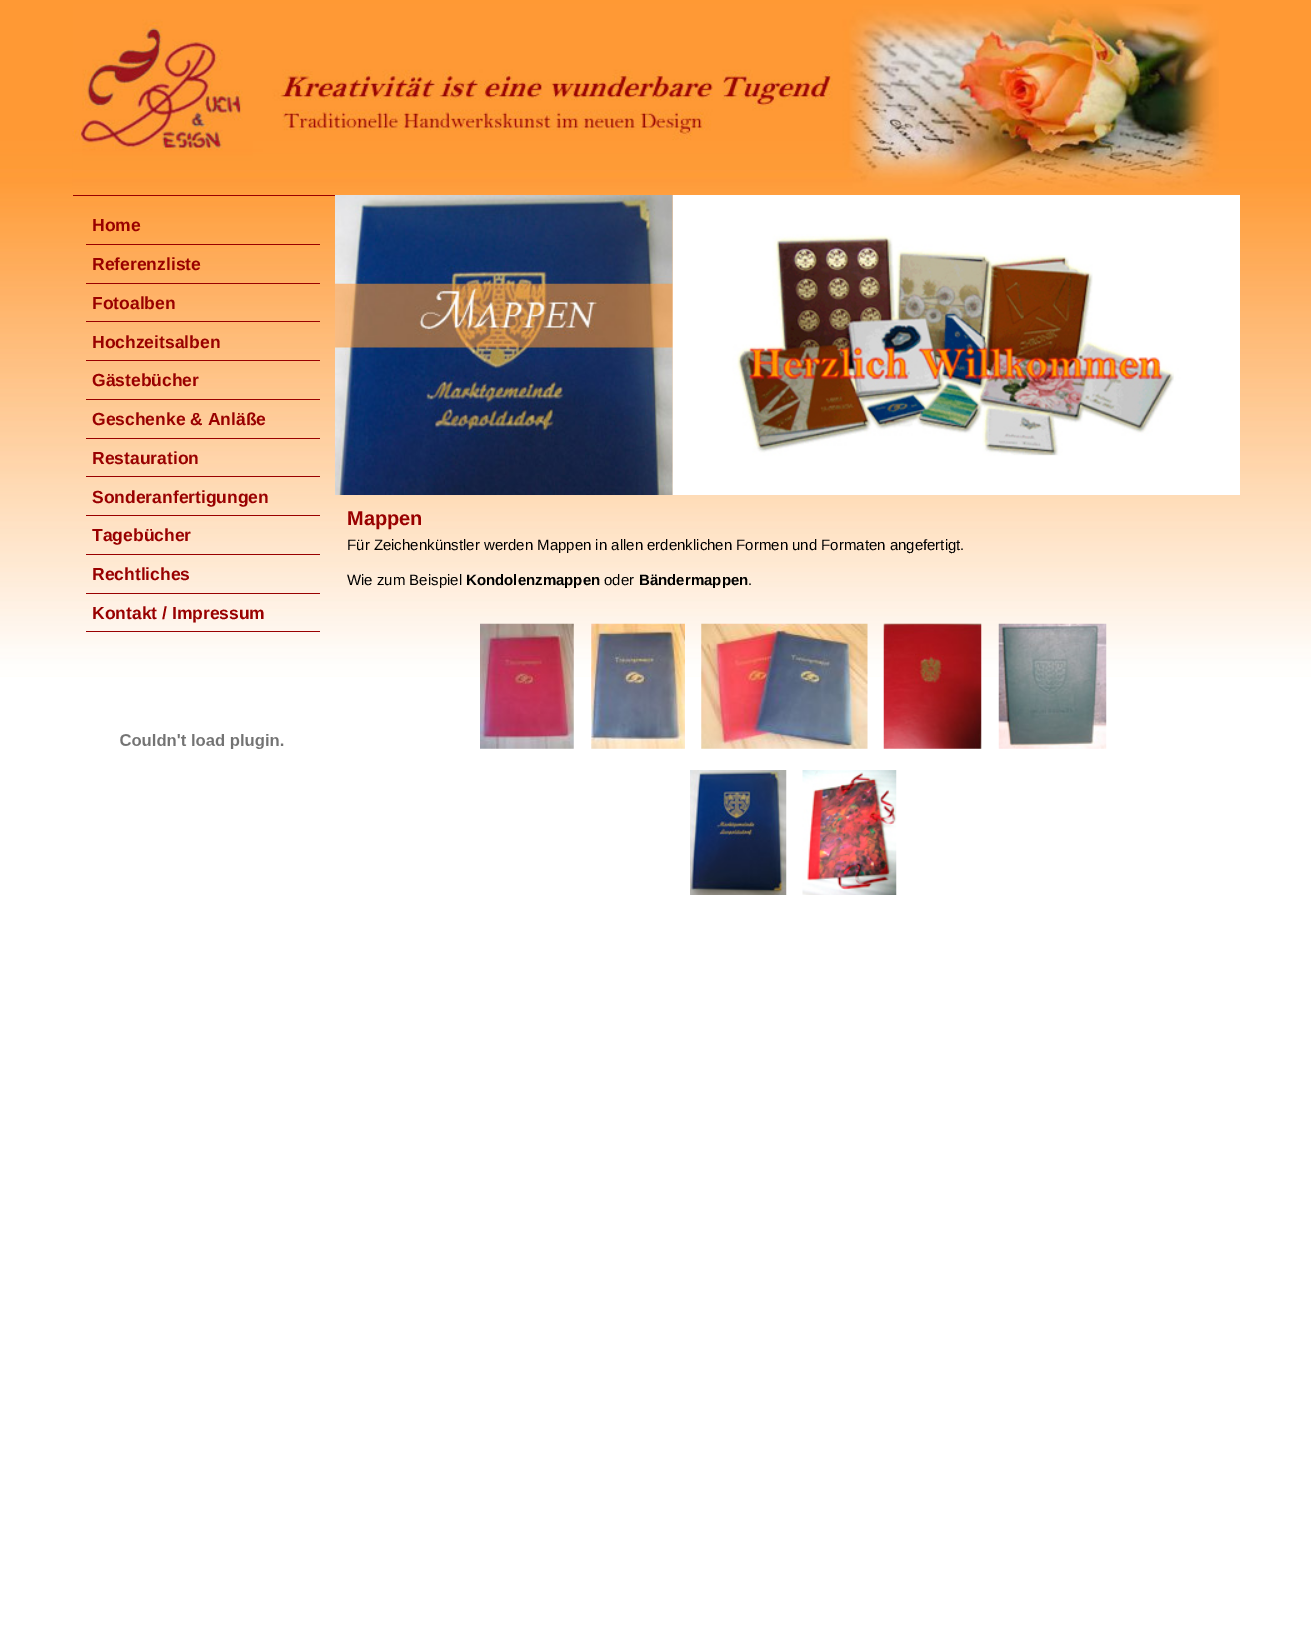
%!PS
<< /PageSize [1311 1639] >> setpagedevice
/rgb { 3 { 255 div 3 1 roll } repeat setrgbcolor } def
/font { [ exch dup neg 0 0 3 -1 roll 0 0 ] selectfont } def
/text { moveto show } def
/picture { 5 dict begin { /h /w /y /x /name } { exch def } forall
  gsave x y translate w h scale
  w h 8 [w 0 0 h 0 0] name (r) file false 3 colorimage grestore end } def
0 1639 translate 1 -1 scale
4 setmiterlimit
255 255 255 rgb
0 0 1311 1639 rectfill
(img_01.rgb) 0 0 1311 677 picture
(img_02.rgb) 72 4 1147 186 picture
153 0 0 rgb
73 195 262 1 rectfill
86 244 234 1 rectfill
86 283 234 1 rectfill
86 321 234 1 rectfill
86 360 234 1 rectfill
86 399 234 1 rectfill
86 438 234 1 rectfill
86 476 234 1 rectfill
86 515 234 1 rectfill
86 554 234 1 rectfill
86 593 234 1 rectfill
86 631 234 1 rectfill
(img_03.rgb) 120 734 164 15 picture
(img_05.rgb) 672 195 568 300 picture
(img_04.rgb) 335 195 338 300 picture
(img_06.rgb) 480 623 94 126 picture
(img_07.rgb) 591 623 94 126 picture
(img_08.rgb) 701 623 167 126 picture
(img_09.rgb) 883 623 99 126 picture
(img_10.rgb) 998 623 109 126 picture
(img_11.rgb) 690 770 97 125 picture
(img_12.rgb) 802 770 95 125 picture
/LiberationSans-Bold 17.5 font
(Home) 92 231 text
(Referenzliste) 92 270 text
(Fotoalben) 92 309 text
(Hochzeitsalben) 92 348 text
(Gästebücher) 92 386 text
(Geschenke & Anläße) 92 425 text
(Restauration) 92 464 text
(Sonderanfertigungen) 92 503 text
(Tagebücher) 92 541 text
(Rechtliches) 92 580 text
(Kontakt / Impressum) 92 619 text
/LiberationSans-Bold 20 font
(Mappen) 347 525 text
/LiberationSans-Regular 15 font
0 0 0 rgb
(Für Zeichenkünstler werden Mappen in allen erdenklichen Formen und Formaten angefertigt.) 347 550 text
(Wie zum Beispiel) 347 585 text
/LiberationSans-Bold 15 font
(Kondolenzmappen) 466 585 text
/LiberationSans-Regular 15 font
(oder) 604 585 text
/LiberationSans-Bold 15 font
(Bändermappen) 639 585 text
/LiberationSans-Regular 15 font
(.) 748 585 text
showpage
